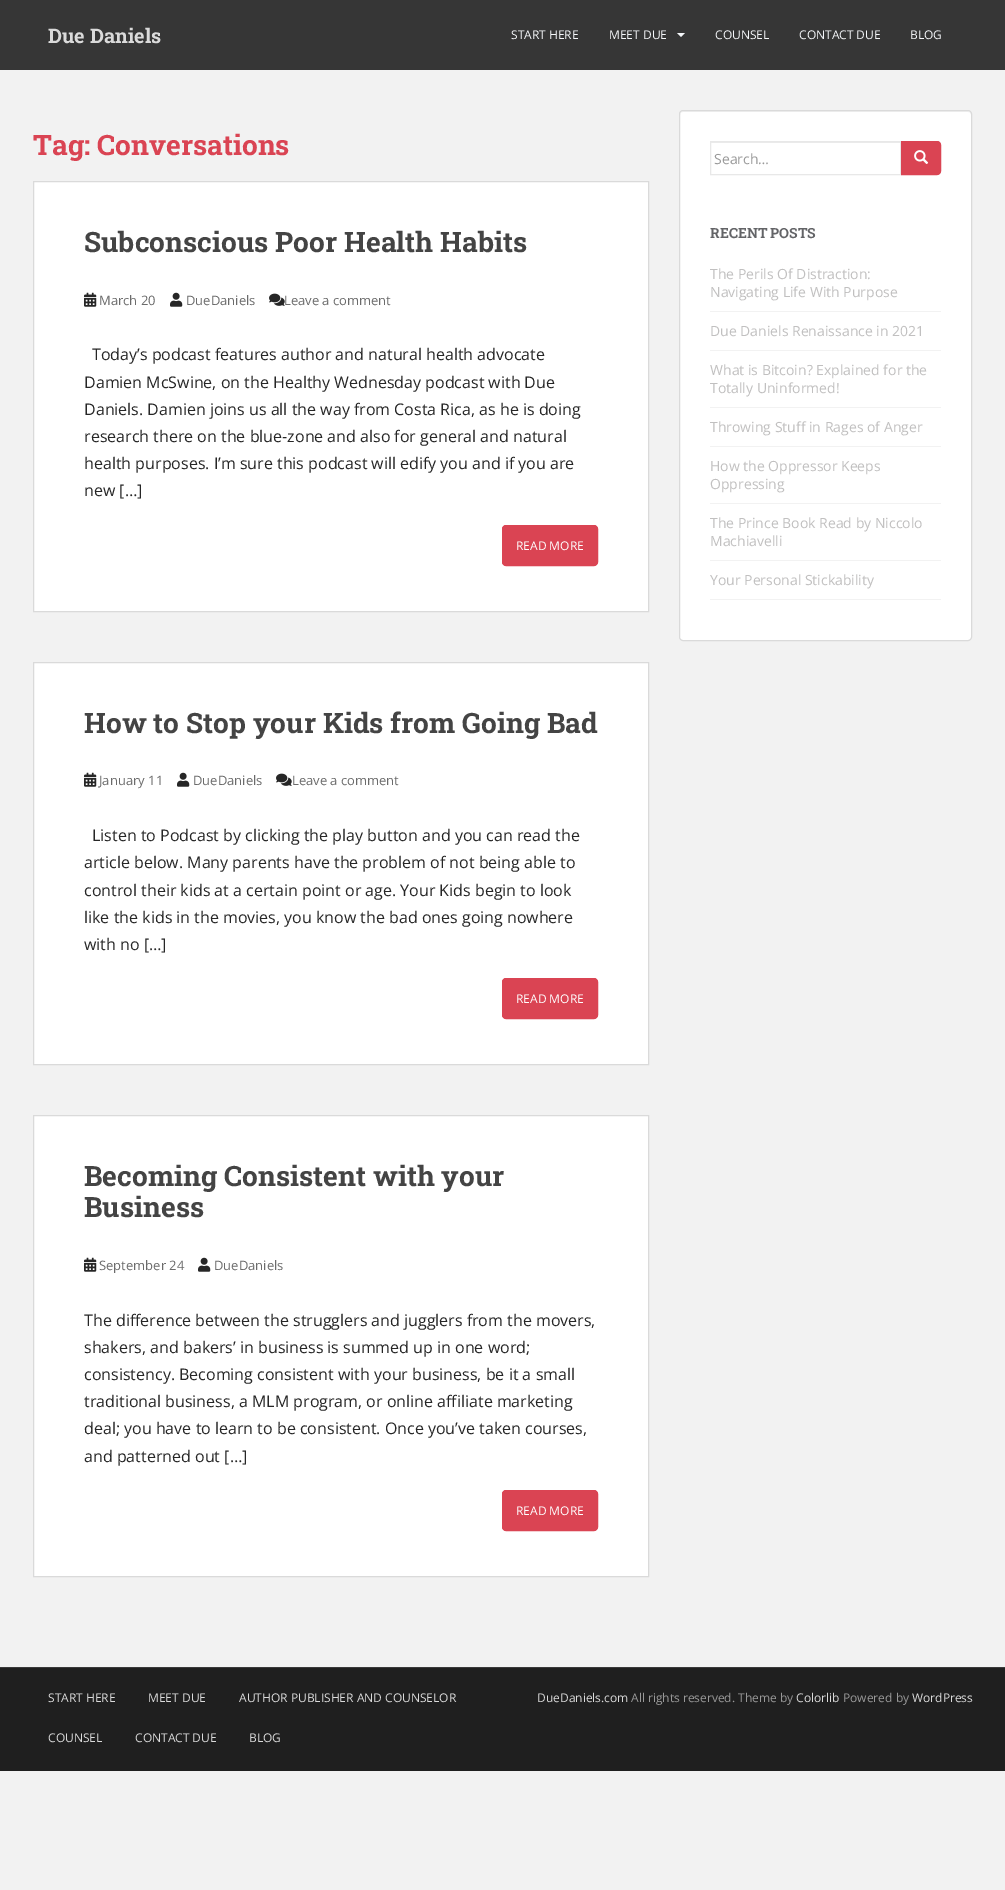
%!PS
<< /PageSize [1005 1890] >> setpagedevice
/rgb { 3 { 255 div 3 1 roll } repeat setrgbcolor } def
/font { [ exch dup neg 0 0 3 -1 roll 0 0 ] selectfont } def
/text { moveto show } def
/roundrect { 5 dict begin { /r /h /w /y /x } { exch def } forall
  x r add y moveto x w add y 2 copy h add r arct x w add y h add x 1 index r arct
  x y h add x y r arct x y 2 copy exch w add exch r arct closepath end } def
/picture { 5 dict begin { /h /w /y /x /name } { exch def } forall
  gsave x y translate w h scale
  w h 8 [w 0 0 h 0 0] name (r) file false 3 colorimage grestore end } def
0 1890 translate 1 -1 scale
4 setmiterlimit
242 242 242 rgb
0 0 1005 1890 rectfill
54 54 54 rgb
0 0 1005 70 rectfill
245 247 250 rgb
677 33 moveto 8 0 rlineto -4 4 rlineto closepath fill
255 255 255 rgb
33.5 181.5 moveto 615 0 rlineto 0 430 rlineto -615 0 rlineto closepath gsave fill grestore
218 218 218 rgb
stroke
(img_01.rgb) 84 292 13 15 picture
(img_02.rgb) 170 292 13 15 picture
(img_03.rgb) 269 293 16 13 picture
218 68 83 rgb
502.5 525.5 95 40 3.5 roundrect gsave fill grestore
stroke
255 255 255 rgb
33.5 662.5 moveto 615 0 rlineto 0 402 rlineto -615 0 rlineto closepath gsave fill grestore
218 218 218 rgb
stroke
(img_01.rgb) 84 772 13 15 picture
(img_02.rgb) 177 772 13 15 picture
(img_03.rgb) 276 773 16 13 picture
218 68 83 rgb
502.5 978.5 95 40 3.5 roundrect gsave fill grestore
stroke
255 255 255 rgb
33.5 1115.5 moveto 615 0 rlineto 0 461 rlineto -615 0 rlineto closepath gsave fill grestore
218 218 218 rgb
stroke
(img_01.rgb) 84 1257 13 15 picture
(img_02.rgb) 198 1257 13 15 picture
218 68 83 rgb
502.5 1490.5 95 40 3.5 roundrect gsave fill grestore
stroke
255 255 255 rgb
679 110 293 531 4 roundrect fill
242 242 242 rgb
683 112 moveto 285 0 rlineto 2 0 3 1 3 3 rcurveto 0 -2 -1 -4 -3 -4 rcurveto -285 0 rlineto -2 0 -3 2 -3 4 rcurveto 0 -2 1 -3 3 -3 rcurveto closepath fill
218 218 218 rgb
679.5 110.5 292 530 3.5 roundrect stroke
236 236 236 rgb
711 142 189 1 rectfill
232 232 232 rgb
710.5 141.5 190 33 rectstroke
218 68 83 rgb
901.5 141.5 moveto 35.5 0 rlineto 2 0 3.5 1.5 3.5 3.5 rcurveto 0 26 rlineto 0 2 -1.5 3.5 -3.5 3.5 rcurveto -35.5 0 rlineto closepath gsave fill grestore
stroke
(img_04.rgb) 914 150 15 14 picture
242 242 242 rgb
710 311 231 1 rectfill
710 350 231 1 rectfill
710 407 231 1 rectfill
710 446 231 1 rectfill
710 503 231 1 rectfill
710 560 231 1 rectfill
710 599 231 1 rectfill
31 31 31 rgb
0 1668 1005 103 rectfill
58 58 58 rgb
0 1667 1005 1 rectfill
/RobotoSlab-Bold 20 font
218 218 218 rgb
(Due Daniels) 48 43 text
/OpenSans-Regular 12 font
245 247 250 rgb
(START HERE) 511 39 text
(MEET DUE) 609 39 text
(COUNSEL) 715 39 text
(CONTACT DUE) 799 39 text
(BLOG) 910 39 text
/RobotoSlab-Bold 28 font
218 68 83 rgb
(Tag: Conversations) 33 155 text
68 68 68 rgb
(Subconscious Poor Health Habits) 84 252 text
/OpenSans-Regular 13 font
107 107 107 rgb
(March 20) 99 305 text
(DueDaniels) 186 305 text
(Leave a comment) 284 305 text
/OpenSans-Regular 16 font
38 38 38 rgb
(Today’s podcast features author and natural health advocate) 92 360 text
(Damien McSwine, on the Healthy Wednesday podcast with Due) 84 388 text
(Daniels. Damien joins us all the way from Costa Rica, as he is doing) 84 415 text
(research there on the blue-zone and also for general and natural) 84 442 text
(health purposes. I’m sure this podcast will edify you and if you are) 84 469 text
(new […]) 84 496 text
/OpenSans-Regular 12 font
255 255 255 rgb
(READ MORE) 516 550 text
/RobotoSlab-Bold 28 font
68 68 68 rgb
(How to Stop your Kids from Going Bad) 84 733 text
/OpenSans-Regular 13 font
107 107 107 rgb
(January 11) 99 785 text
(DueDaniels) 193 785 text
(Leave a comment) 292 785 text
/OpenSans-Regular 16 font
38 38 38 rgb
(Listen to Podcast by clicking the play button and you can read the) 92 841 text
(article below. Many parents have the problem of not being able to) 84 868 text
(control their kids at a certain point or age. Your Kids begin to look) 84 896 text
(like the kids in the movies, you know the bad ones going nowhere) 84 923 text
(with no […]) 84 950 text
/OpenSans-Regular 12 font
255 255 255 rgb
(READ MORE) 516 1003 text
/RobotoSlab-Bold 28 font
68 68 68 rgb
(Becoming Consistent with your) 84 1186 text
(Business) 84 1217 text
/OpenSans-Regular 13 font
107 107 107 rgb
(September 24) 99 1270 text
(DueDaniels) 214 1270 text
/OpenSans-Regular 16 font
38 38 38 rgb
(The difference between the strugglers and jugglers from the movers,) 84 1326 text
(shakers, and bakers’ in business is summed up in one word;) 84 1353 text
(consistency. Becoming consistent with your business, be it a small) 84 1380 text
(traditional business, a MLM program, or online affiliate marketing) 84 1407 text
(deal; you have to learn to be consistent. Once you’ve taken courses,) 84 1434 text
(and patterned out […]) 84 1462 text
/OpenSans-Regular 12 font
255 255 255 rgb
(READ MORE) 516 1515 text
/OpenSans-Regular 14 font
153 153 153 rgb
(Search…) 714 164 text
/RobotoSlab-Bold 14 font
99 100 103 rgb
(RECENT POSTS) 710 238 text
/OpenSans-Regular 14 font
193 192 192 rgb
(The Perils Of Distraction:) 710 279 text
(Navigating Life With Purpose) 710 297 text
(Due Daniels Renaissance in 2021) 710 336 text
(What is Bitcoin? Explained for the) 710 375 text
(Totally Uninformed!) 710 393 text
(Throwing Stuff in Rages of Anger) 710 432 text
(How the Oppressor Keeps) 710 471 text
(Oppressing) 710 489 text
(The Prince Book Read by Niccolo) 710 528 text
(Machiavelli) 710 546 text
(Your Personal Stickability) 710 585 text
/OpenSans-Regular 12 font
218 218 218 rgb
(START HERE) 48 1702 text
(MEET DUE) 148 1702 text
(AUTHOR PUBLISHER AND COUNSELOR) 239 1702 text
(COUNSEL) 48 1742 text
(CONTACT DUE) 135 1742 text
(BLOG) 249 1742 text
(DueDaniels.com) 537 1702 text
153 153 153 rgb
(All rights reserved. Theme by) 631 1702 text
218 218 218 rgb
(Colorlib) 796 1702 text
153 153 153 rgb
(Powered by) 843 1702 text
218 218 218 rgb
(WordPress) 912 1702 text
showpage
